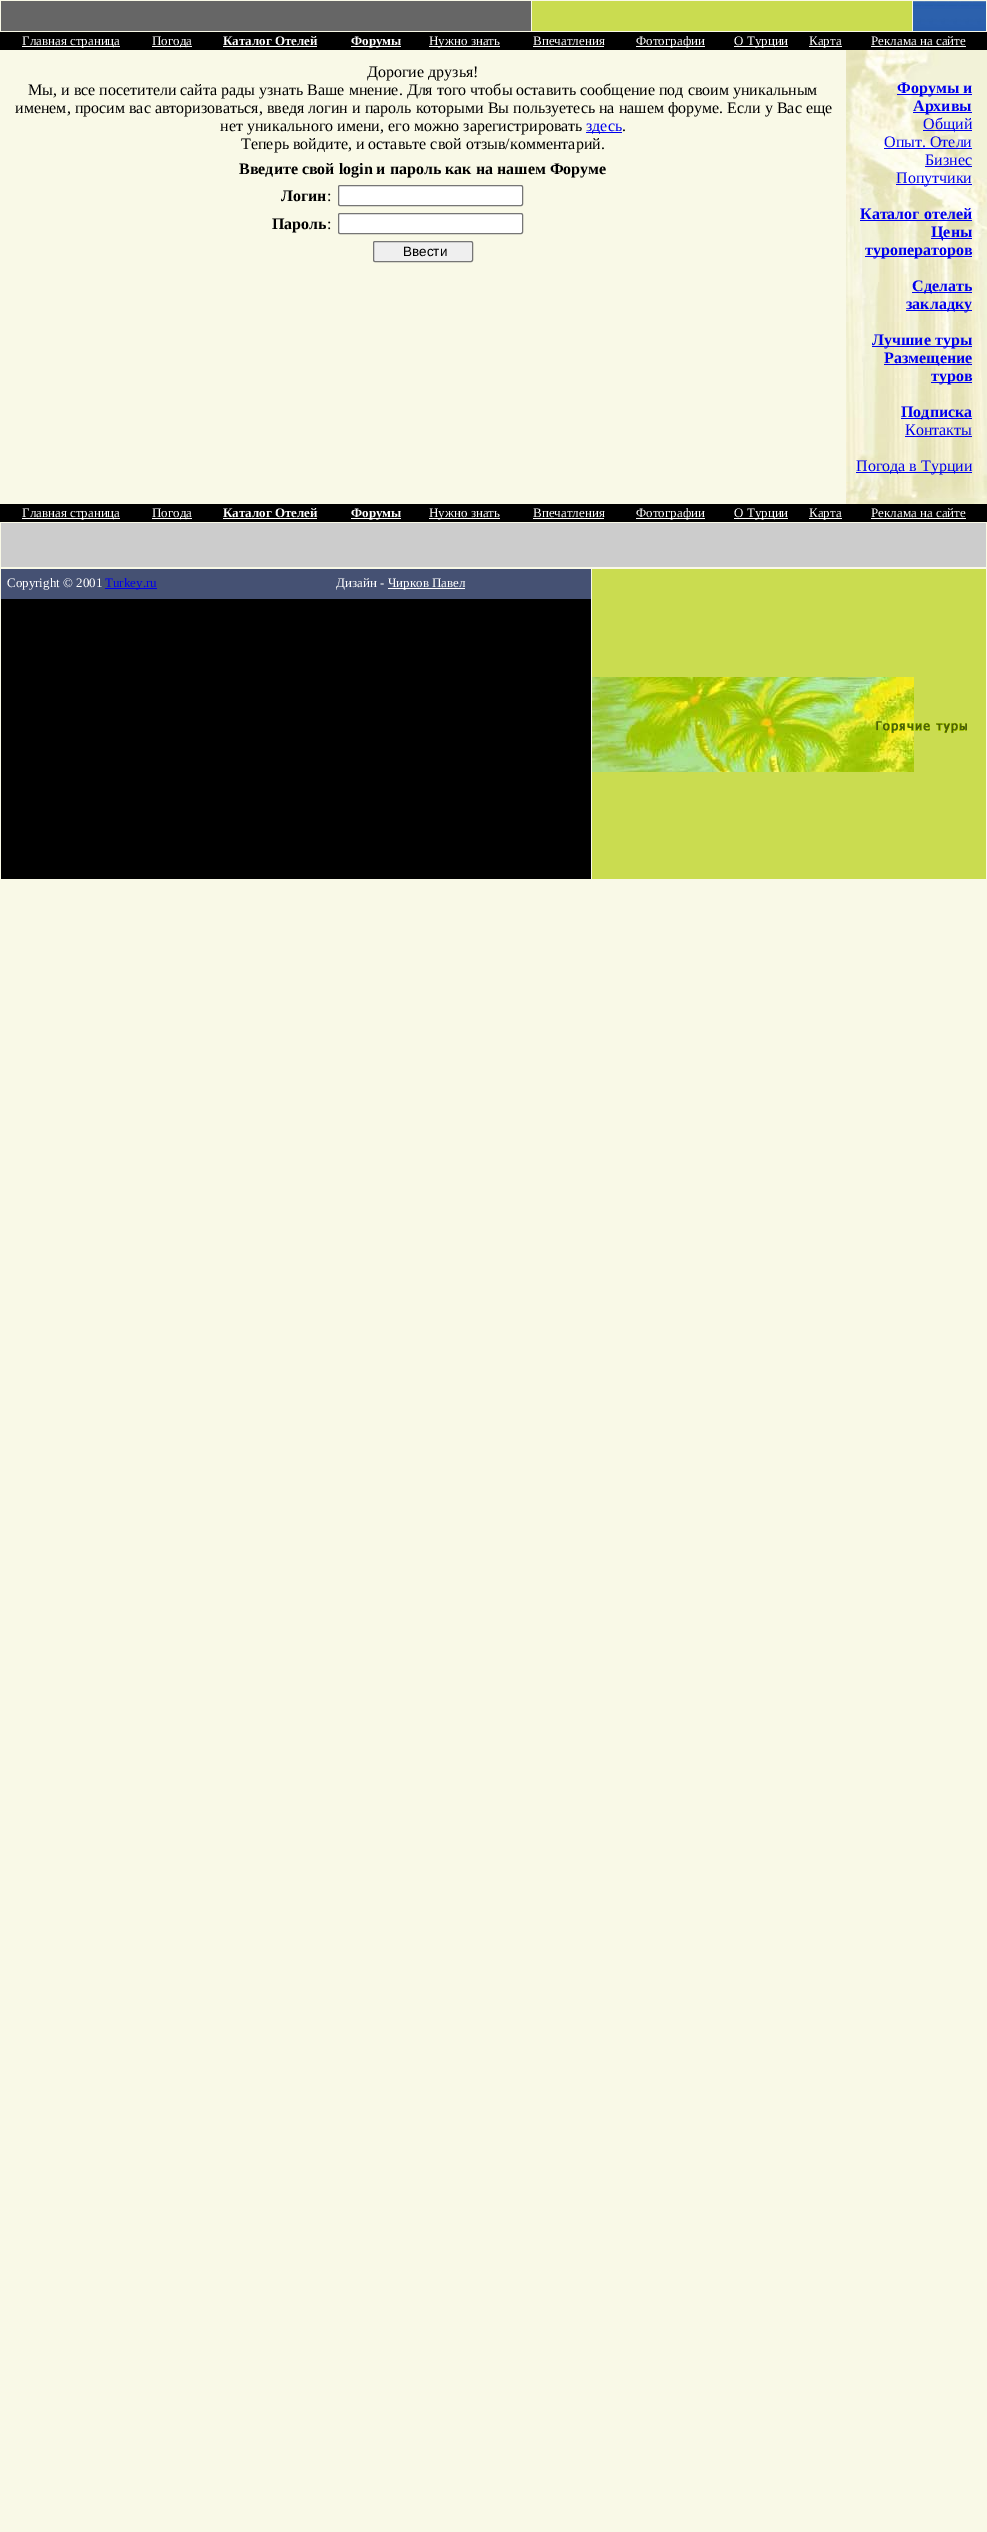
%!PS
<< /PageSize [987 2532] >> setpagedevice
/rgb { 3 { 255 div 3 1 roll } repeat setrgbcolor } def
/font { [ exch dup neg 0 0 3 -1 roll 0 0 ] selectfont } def
/text { moveto show } def
/roundrect { 5 dict begin { /r /h /w /y /x } { exch def } forall
  x r add y moveto x w add y 2 copy h add r arct x w add y h add x 1 index r arct
  x y h add x y r arct x y 2 copy exch w add exch r arct closepath end } def
/picture { 5 dict begin { /h /w /y /x /name } { exch def } forall
  gsave x y translate w h scale
  w h 8 [w 0 0 h 0 0] name (r) file false 3 colorimage grestore end } def
0 2532 translate 1 -1 scale
4 setmiterlimit
249 249 231 rgb
0 0 987 2532 rectfill
102 102 102 rgb
1 1 530 30 rectfill
202 220 80 rgb
532 1 380 30 rectfill
(img_01.rgb) 913 1 73 30 picture
0 0 0 rgb
0 32 987 18 rectfill
255 255 255 rgb
22 46 98 1 rectfill
152 46 40 1 rectfill
223 46 94 1 rectfill
351 46 50 1 rectfill
429 46 71 1 rectfill
533 46 71 1 rectfill
636 46 69 1 rectfill
734 46 54 1 rectfill
809 46 33 1 rectfill
871 46 95 1 rectfill
0 0 238 rgb
586 132 36 1 rectfill
255 255 255 rgb
338.5 185.5 184 20 1.5 roundrect gsave fill grestore
118 118 118 rgb
stroke
255 255 255 rgb
338.5 213.5 184 20 1.5 roundrect gsave fill grestore
118 118 118 rgb
stroke
239 239 239 rgb
373.5 241.5 99 20 1.5 roundrect gsave fill grestore
118 118 118 rgb
stroke
(img_02.rgb) 846 50 141 454 picture
0 0 238 rgb
897 94 75 1 rectfill
913 112 59 1 rectfill
923 130 49 1 rectfill
884 148 88 1 rectfill
925 166 47 1 rectfill
896 184 76 1 rectfill
860 220 112 1 rectfill
931 238 41 1 rectfill
865 256 107 1 rectfill
912 292 60 1 rectfill
906 310 66 1 rectfill
872 346 100 1 rectfill
884 364 88 1 rectfill
931 382 41 1 rectfill
901 418 71 1 rectfill
905 436 67 1 rectfill
856 472 116 1 rectfill
0 0 0 rgb
0 504 987 18 rectfill
255 255 255 rgb
22 518 98 1 rectfill
152 518 40 1 rectfill
223 518 94 1 rectfill
351 518 50 1 rectfill
429 518 71 1 rectfill
533 518 71 1 rectfill
636 518 69 1 rectfill
734 518 54 1 rectfill
809 518 33 1 rectfill
871 518 95 1 rectfill
204 204 204 rgb
1 523 985 44 rectfill
0 0 0 rgb
1 599 590 280 rectfill
69 81 115 rgb
1 569 590 30 rectfill
0 0 238 rgb
105 588 52 1 rectfill
255 255 255 rgb
388 588 77 1 rectfill
202 220 80 rgb
592 569 394 310 rectfill
(img_03.rgb) 592 677 322 95 picture
(img_04.rgb) 876 721 91 12 picture
/LiberationSerif-Regular 13 font
255 255 255 rgb
(Главная страница) 22 45 text
(Погода) 152 45 text
/LiberationSerif-Bold 13 font
(Каталог Отелей) 223 45 text
(Форумы) 351 45 text
/LiberationSerif-Regular 13 font
(Нужно знать) 429 45 text
(Впечатления) 533 45 text
(Фотографии) 636 45 text
(О Турции) 734 45 text
(Карта) 809 45 text
(Реклама на сайте) 871 45 text
/LiberationSerif-Regular 16 font
0 0 0 rgb
(Дорогие друзья!) 367 77 text
(Мы, и все посетители сайта рады узнать Ваше мнение. Для того чтобы оставить сообщение под своим уникальным) 28 95 text
(именем, просим вас авторизоваться, введя логин и пароль которыми Вы пользуетесь на нашем форуме. Если у Вас еще) 15 113 text
(нет уникального имени, его можно зарегистрировать) 220 131 text
0 0 238 rgb
(здесь) 586 131 text
0 0 0 rgb
(.) 622 131 text
(Теперь войдите, и оставьте свой отзыв/комментарий.) 241 149 text
/LiberationSerif-Bold 16 font
(Введите свой login и пароль как на нашем Форуме) 239 174 text
(Логин) 281 201 text
/LiberationSerif-Regular 16 font
(:) 327 201 text
/LiberationSerif-Bold 16 font
(Пароль) 272 229 text
/LiberationSerif-Regular 16 font
(:) 327 229 text
/LiberationSans-Regular 13.5 font
(Ввести) 403 256 text
/LiberationSerif-Bold 16 font
0 0 238 rgb
(Форумы и) 897 93 text
(Архивы) 913 111 text
/LiberationSerif-Regular 16 font
(Общий) 923 129 text
(Опыт. Отели) 884 147 text
(Бизнес) 925 165 text
(Попутчики) 896 183 text
/LiberationSerif-Bold 16 font
(Каталог отелей) 860 219 text
(Цены) 931 237 text
(туроператоров) 865 255 text
(Сделать) 912 291 text
(закладку) 906 309 text
(Лучшие туры) 872 345 text
(Размещение) 884 363 text
(туров) 931 381 text
(Подписка) 901 417 text
/LiberationSerif-Regular 16 font
(Контакты) 905 435 text
(Погода в Турции) 856 471 text
/LiberationSerif-Regular 13 font
255 255 255 rgb
(Главная страница) 22 517 text
(Погода) 152 517 text
/LiberationSerif-Bold 13 font
(Каталог Отелей) 223 517 text
(Форумы) 351 517 text
/LiberationSerif-Regular 13 font
(Нужно знать) 429 517 text
(Впечатления) 533 517 text
(Фотографии) 636 517 text
(О Турции) 734 517 text
(Карта) 809 517 text
(Реклама на сайте) 871 517 text
(Copyright © 2001) 7 587 text
0 0 238 rgb
(Turkey.ru) 105 587 text
255 255 255 rgb
(Дизайн -) 336 587 text
(Чирков Павел) 388 587 text
showpage
